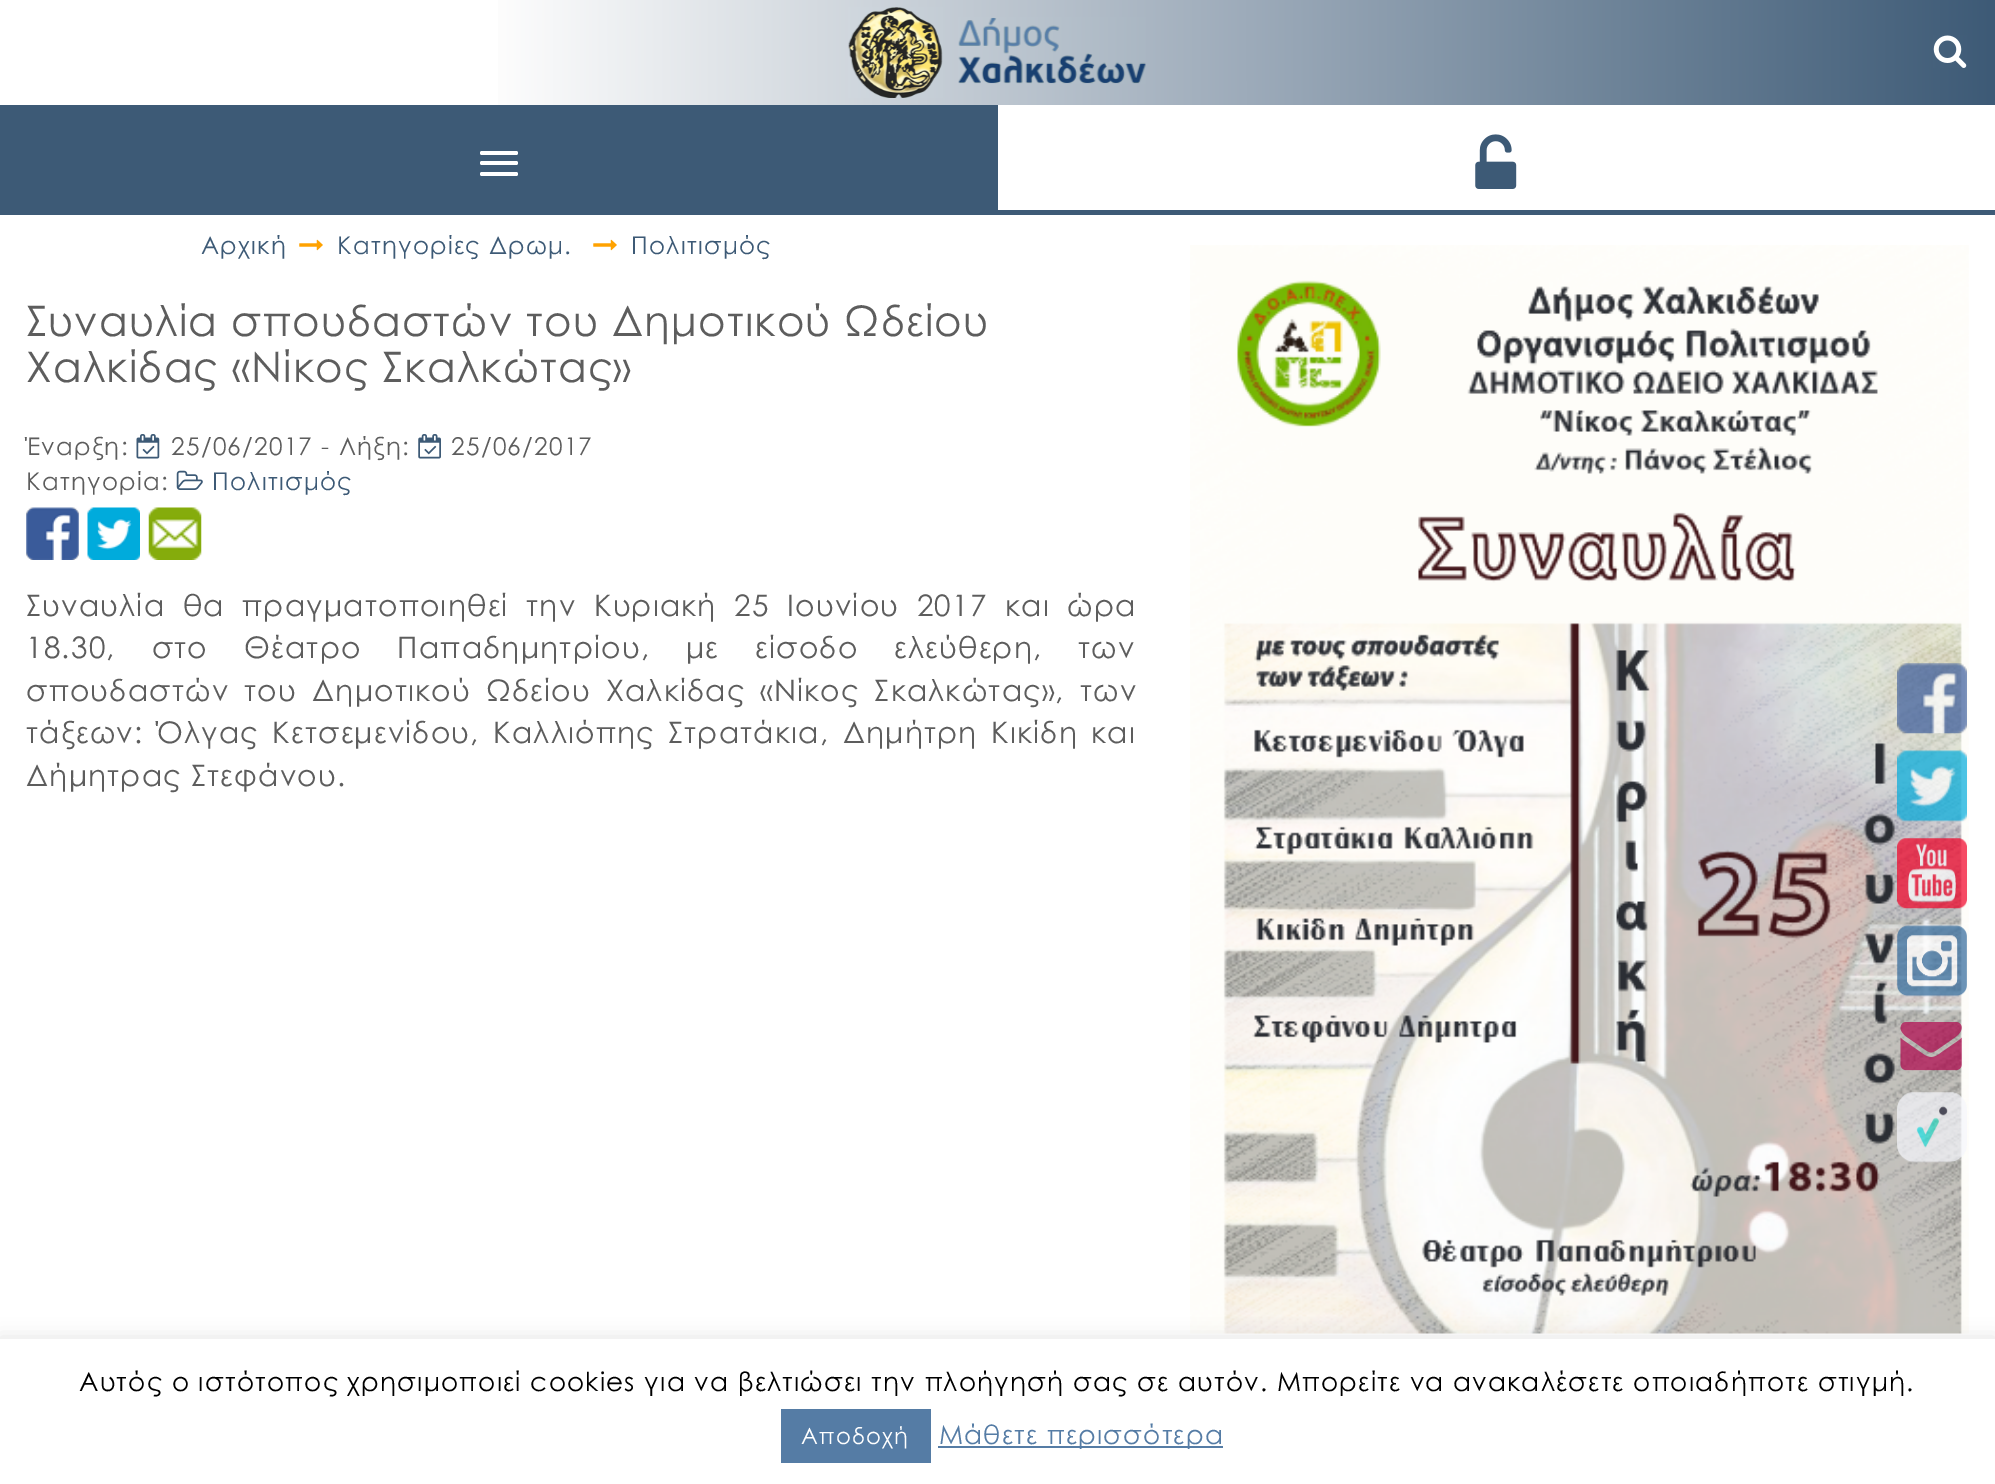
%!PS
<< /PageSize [1995 1484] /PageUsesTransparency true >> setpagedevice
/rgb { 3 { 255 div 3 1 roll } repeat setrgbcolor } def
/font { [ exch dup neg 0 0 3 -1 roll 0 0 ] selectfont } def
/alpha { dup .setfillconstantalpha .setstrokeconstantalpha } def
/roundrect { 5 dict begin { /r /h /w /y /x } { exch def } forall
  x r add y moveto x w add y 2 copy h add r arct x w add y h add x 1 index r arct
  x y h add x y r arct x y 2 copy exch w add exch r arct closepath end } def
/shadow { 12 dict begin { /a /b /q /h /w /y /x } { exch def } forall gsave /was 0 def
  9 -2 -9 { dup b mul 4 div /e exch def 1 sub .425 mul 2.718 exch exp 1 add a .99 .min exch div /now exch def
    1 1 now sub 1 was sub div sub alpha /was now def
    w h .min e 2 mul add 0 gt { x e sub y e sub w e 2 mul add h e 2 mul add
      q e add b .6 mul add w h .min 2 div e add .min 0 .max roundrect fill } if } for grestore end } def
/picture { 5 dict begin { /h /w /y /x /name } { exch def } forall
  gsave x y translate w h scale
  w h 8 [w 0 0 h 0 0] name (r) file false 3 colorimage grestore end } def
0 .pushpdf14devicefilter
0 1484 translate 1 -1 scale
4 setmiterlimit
255 255 255 rgb
0 0 1995 1484 rectfill
gsave 498 0 moveto 1497 0 rlineto 0 105 rlineto -1497 0 rlineto closepath clip newpath
<< /ShadingType 2 /ColorSpace /DeviceRGB /Coords [0 53 1995 52] /Extend [true true] /Function << /FunctionType 3 /Domain [0 1] /Functions [<< /FunctionType 2 /Domain [0 1] /C0 [1 1 1] /C1 [1 1 1] /N 1 >> << /FunctionType 2 /Domain [0 1] /C0 [1 1 1] /C1 [0.239 0.353 0.463] /N 1 >>] /Bounds [0.24] /Encode [0 1 0 1] >> >> shfill grestore
(img_01.rgb) 848 7 95 91 picture
(img_02.rgb) 958 17 188 67 picture
61 90 118 rgb
0 210 1995 5 rectfill
(img_03.rgb) 1933 35 34 33 picture
0 105 998 105 rectfill
255 255 255 rgb
480 151 38 4 2 roundrect fill
480 161 38 4 2 roundrect fill
480 172 38 4 2 roundrect fill
(img_04.rgb) 1475 134 42 55 picture
(img_18.rgb) 1190 245 779 1089 picture
(img_05.rgb) 1897 663 70 71 picture
(img_06.rgb) 1897 750 70 72 picture
(img_07.rgb) 1897 838 70 71 picture
(img_08.rgb) 1897 925 70 72 picture
(img_09.rgb) 1900 1022 62 49 picture
(img_10.rgb) 1897 1092 70 71 picture
(img_11.rgb) 299 239 24 12 picture
(img_11.rgb) 593 239 24 12 picture
(img_12.rgb) 136 434 24 25 picture
(img_13.rgb) 418 434 23 25 picture
(img_14.rgb) 176 470 27 20 picture
(img_15.rgb) 26 507 53 53 picture
(img_16.rgb) 87 507 53 53 picture
(img_17.rgb) 148 507 54 53 picture
172 171 171 rgb
0 1337 1995 145 0 9 0.3 shadow
255 255 255 rgb
0 1339 1995 145 rectfill
85 124 165 rgb
781 1409 150 54 rectfill
938 1446 285 2 rectfill
/CenturyGothic-Regular 24.5 font
61 90 118 rgb
201 254 moveto 1.22 0 (Αρχική) ashow
337 254 moveto 1.22 0 (Κατηγορίες Δρωμ.) ashow
631 254 moveto 1.22 0 (Πολιτισμός) ashow
/CenturyGothic-Regular 42 font
93 93 93 rgb
26 336 moveto 1.22 0 (Συναυλία σπουδαστών του Δημοτικού Ωδείου) ashow
26 382 moveto 1.22 0 (Χαλκίδας «Νίκος Σκαλκώτας») ashow
/CenturyGothic-Regular 24.5 font
26 455 moveto 1.22 0 (Έναρξη:) ashow
171 455 moveto 1.22 0 (25/06/2017 - Λήξη:) ashow
451 455 moveto 1.22 0 (25/06/2017) ashow
26 490 moveto 1.22 0 (Κατηγορία:) ashow
61 90 118 rgb
212 490 moveto 1.22 0 (Πολιτισμός) ashow
/CenturyGothic-Regular 29.75 font
93 93 93 rgb
26 616 moveto 8 0 32 1.22 0 (Συναυλία θα πραγματοποιηθεί την Κυριακή 25 Ιουνίου 2017 και ώρα) awidthshow
26 658 moveto 26.5 0 32 1.22 0 (18.30, στο Θέατρο Παπαδημητρίου, με είσοδο ελεύθερη, των) awidthshow
26 701 moveto 5.5 0 32 1.22 0 (σπουδαστών του Δημοτικού Ωδείου Χαλκίδας «Νίκος Σκαλκώτας», των) awidthshow
26 743 moveto 4 0 32 1.22 0 (τάξεων: Όλγας Κετσεμενίδου, Καλλιόπης Στρατάκια, Δημήτρη Κικίδη και) awidthshow
26 786 moveto 1.22 0 (Δήμητρας Στεφάνου.) ashow
/CenturyGothic-Regular 26.25 font
0 0 0 rgb
79 1391 moveto 1.22 0 (Αυτός ο ιστότοπος χρησιμοποιεί cookies για να βελτιώσει την πλοήγησή σας σε αυτόν. Μπορείτε να ανακαλέσετε οποιαδήποτε στιγμή.) ashow
/CenturyGothic-Regular 22.75 font
255 255 255 rgb
801 1444 moveto 1.22 0 (Αποδοχή) ashow
/CenturyGothic-Regular 26.25 font
85 124 165 rgb
939 1444 moveto 1.22 0 (Μάθετε περισσότερα) ashow
.poppdf14devicefilter showpage
